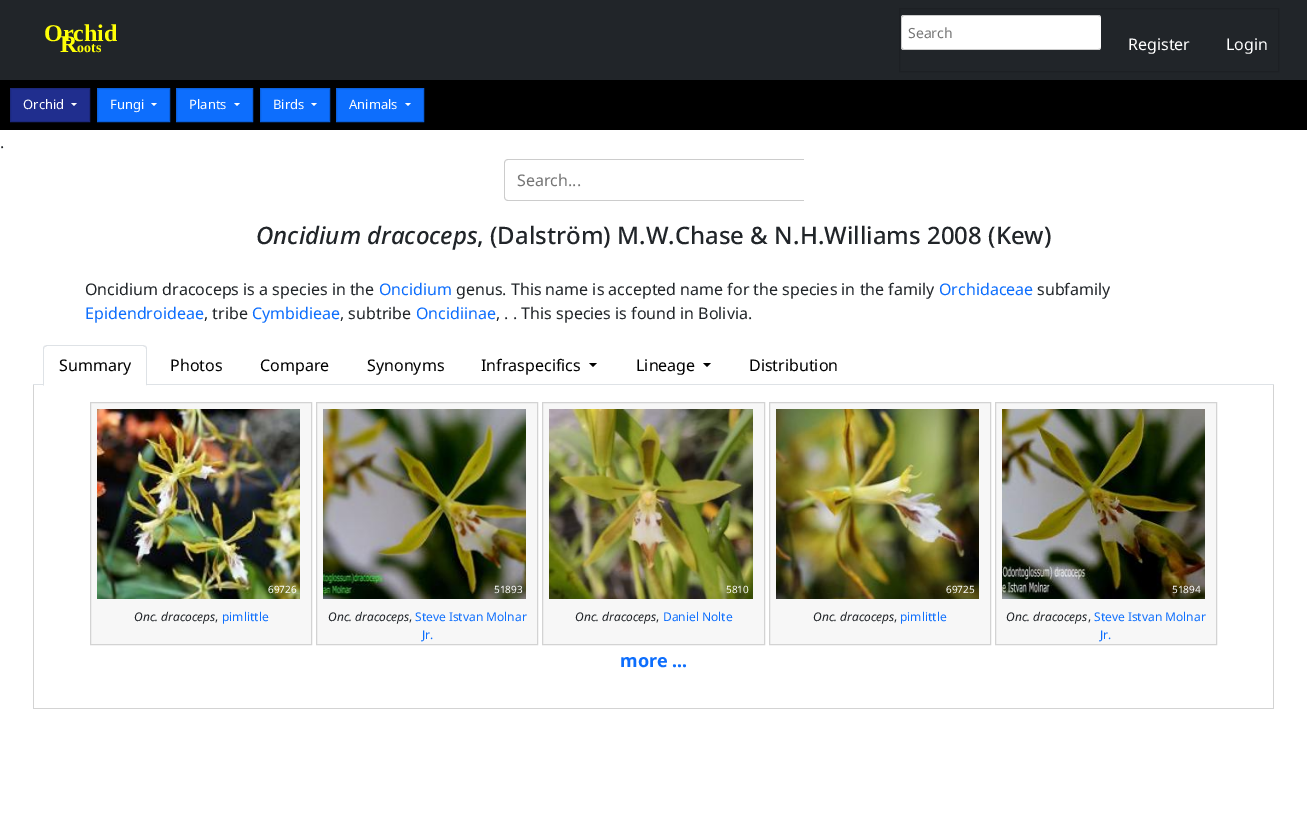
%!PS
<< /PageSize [1307 833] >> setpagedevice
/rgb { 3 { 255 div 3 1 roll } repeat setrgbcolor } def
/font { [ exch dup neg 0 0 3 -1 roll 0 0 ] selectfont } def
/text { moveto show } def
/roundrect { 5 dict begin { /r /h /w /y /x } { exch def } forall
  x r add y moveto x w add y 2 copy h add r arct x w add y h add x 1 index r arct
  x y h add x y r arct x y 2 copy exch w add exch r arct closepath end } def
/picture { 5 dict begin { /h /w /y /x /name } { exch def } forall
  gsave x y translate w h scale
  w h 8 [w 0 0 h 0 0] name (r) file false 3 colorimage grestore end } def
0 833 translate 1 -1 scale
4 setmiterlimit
255 255 255 rgb
0 0 1307 833 rectfill
33 37 41 rgb
0 0 1307 80 rectfill
29 32 36 rgb
899.5 8.5 379 63 rectstroke
255 255 255 rgb
901 15 200 35 3 roundrect fill
204 204 204 rgb
904 15 moveto 194 0 rlineto 2 0 3 1 3 3 rcurveto 0 29 rlineto 0 2 -1 3 -3 3 rcurveto -194 0 rlineto -2 0 -3 -1 -3 -3 rcurveto 0 -29 rlineto 0 -2 1 -3 3 -3 rcurveto closepath 904 16 moveto 194 0 rlineto 2 0 3 1 3 2 rcurveto 0 29 rlineto 0 1 -1 2 -3 2 rcurveto -194 0 rlineto -1 0 -2 -1 -2 -2 rcurveto 0 -29 rlineto 0 -1 1 -2 2 -2 rcurveto closepath eofill
0 0 0 rgb
0 80 1307 50 rectfill
32 46 142 rgb
10.5 88.5 moveto 79 0 rlineto 0 33 rlineto -79 0 rlineto closepath gsave fill grestore
28 40 124 rgb
stroke
255 255 255 rgb
71 103 moveto 6 0 rlineto -3 3 rlineto closepath fill
13 110 253 rgb
97.5 88.5 moveto 72 0 rlineto 0 33 rlineto -72 0 rlineto closepath gsave fill grestore
11 96 221 rgb
stroke
255 255 255 rgb
151 103 moveto 6 0 rlineto -3 3 rlineto closepath fill
13 110 253 rgb
176.5 88.5 moveto 76 0 rlineto 0 33 rlineto -76 0 rlineto closepath gsave fill grestore
11 96 221 rgb
stroke
255 255 255 rgb
234 103 moveto 6 0 rlineto -3 3 rlineto closepath fill
13 110 253 rgb
260.5 88.5 moveto 69 0 rlineto 0 33 rlineto -69 0 rlineto closepath gsave fill grestore
11 96 221 rgb
stroke
255 255 255 rgb
311 103 moveto 6 0 rlineto -3 3 rlineto closepath fill
13 110 253 rgb
336.5 88.5 moveto 87 0 rlineto 0 33 rlineto -87 0 rlineto closepath gsave fill grestore
11 96 221 rgb
stroke
255 255 255 rgb
405 103 moveto 6 0 rlineto -3 3 rlineto closepath fill
204 204 204 rgb
508 159 moveto 296 0 rlineto 0 42 rlineto -296 0 rlineto -2 0 -4 -2 -4 -4 rcurveto 0 -34 rlineto 0 -2 2 -4 4 -4 rcurveto closepath 508 160 moveto 296 0 rlineto 0 40 rlineto -296 0 rlineto -2 0 -3 -1 -3 -3 rcurveto 0 -34 rlineto 0 -2 1 -3 3 -3 rcurveto closepath eofill
222 226 230 rgb
33 384 1241 1 rectfill
255 255 255 rgb
47 345 moveto 96 0 rlineto 2 0 4 2 4 4 rcurveto 0 37 rlineto -104 0 rlineto 0 -37 rlineto 0 -2 2 -4 4 -4 rcurveto closepath fill
222 226 230 rgb
47 345 moveto -3 1 rlineto 1 1 rlineto 2 -1 rlineto 96 0 rlineto 2 1 rlineto 1 -1 rlineto -3 -1 rlineto closepath fill
147 386 moveto 0 -37 rlineto 0 -1 -0.5 -2 -1 -3 rcurveto -1 1 rlineto 1 0 1 1 1 2 rcurveto 0 36 rlineto closepath fill
255 255 255 rgb
147 386 moveto -1 -1 rlineto -102 0 rlineto -1 1 rlineto closepath fill
222 226 230 rgb
43 386 moveto 1 -1 rlineto 0 -36 rlineto 0 -1 0 -2 1 -2 rcurveto -1 -1 rlineto -0.5 1 -1 2 -1 3 rcurveto closepath fill
0 0 0 rgb
589 363 moveto 8 0 rlineto -4 4 rlineto closepath fill
703 363 moveto 8 0 rlineto -4 4 rlineto closepath fill
211 211 211 rgb
1273 385 1 324 rectfill
33 708 1241 1 rectfill
33 385 1 324 rectfill
247 247 247 rgb
90.5 402.5 moveto 221 0 rlineto 0 242 rlineto -221 0 rlineto closepath gsave fill grestore
211 211 211 rgb
stroke
(img_01.rgb) 97 409 203 190 picture
247 247 247 rgb
316.5 402.5 moveto 221 0 rlineto 0 242 rlineto -221 0 rlineto closepath gsave fill grestore
211 211 211 rgb
stroke
(img_02.rgb) 323 409 203 190 picture
247 247 247 rgb
542.5 402.5 moveto 222 0 rlineto 0 242 rlineto -222 0 rlineto closepath gsave fill grestore
211 211 211 rgb
stroke
(img_03.rgb) 549 409 204 190 picture
247 247 247 rgb
769.5 402.5 moveto 221 0 rlineto 0 242 rlineto -221 0 rlineto closepath gsave fill grestore
211 211 211 rgb
stroke
(img_04.rgb) 776 409 203 190 picture
247 247 247 rgb
995.5 402.5 moveto 221 0 rlineto 0 242 rlineto -221 0 rlineto closepath gsave fill grestore
211 211 211 rgb
stroke
(img_05.rgb) 1002 409 203 190 picture
/LiberationSerif-Bold 24 font
255 255 7 rgb
(Orchid) 44 41 text
(R) 60 52 text
/LiberationSerif-Bold 14 font
(oots) 77 52 text
/NotoSans-Regular 14 font
117 117 117 rgb
(Search) 908 38 text
/NotoSans-Regular 16 font
255 255 255 rgb
(Register) 1128 50 text
(Login) 1226 50 text
/NotoSans-Regular 13 font
(Orchid) 23 109 text
(Fungi) 110 109 text
(Plants) 189 109 text
(Birds) 273 109 text
(Animals) 349 109 text
/NotoSans-Regular 16 font
33 37 41 rgb
(.) 0 148 text
117 117 117 rgb
(Search...) 517 186 text
/NotoSans-MediumItalic 24 font
33 37 41 rgb
(Oncidium dracoceps) 256 244 text
/NotoSans-Medium 24 font
(, \(Dalström\) M.W.Chase & N.H.Williams 2008 \(Kew\)) 477 244 text
/NotoSans-Regular 16 font
(Oncidium dracoceps is a species in the) 85 295 text
13 110 253 rgb
(Oncidium) 379 295 text
33 37 41 rgb
(genus. This name is accepted name for the species in the family) 456 295 text
13 110 253 rgb
(Orchidaceae) 939 295 text
33 37 41 rgb
(subfamily) 1037 295 text
13 110 253 rgb
(Epidendroideae) 85 319 text
33 37 41 rgb
(, tribe) 204 319 text
13 110 253 rgb
(Cymbidieae) 252 319 text
33 37 41 rgb
(, subtribe) 340 319 text
13 110 253 rgb
(Oncidiinae) 416 319 text
33 37 41 rgb
(, . . This species is found in Bolivia.) 496 319 text
0 0 0 rgb
(Summary) 59 371 text
(Photos) 170 371 text
(Compare) 260 371 text
(Synonyms) 367 371 text
(Infraspecifics) 481 371 text
(Lineage) 636 371 text
(Distribution) 749 371 text
/NotoSans-Regular 10 font
255 255 255 rgb
(69726) 268 593 text
/NotoSans-Italic 12 font
33 37 41 rgb
(Onc. dracoceps) 134 621 text
/NotoSans-Regular 12 font
(,) 215 621 text
13 110 253 rgb
(pimlittle) 222 621 text
/NotoSans-Regular 10 font
255 255 255 rgb
(51893) 494 593 text
/NotoSans-Italic 12 font
33 37 41 rgb
(Onc. dracoceps) 328 621 text
/NotoSans-Regular 12 font
(,) 409 621 text
13 110 253 rgb
(Steve Istvan Molnar) 415 621 text
(Jr.) 422 639 text
/NotoSans-Regular 10 font
255 255 255 rgb
(5810) 726 593 text
/NotoSans-Italic 12 font
33 37 41 rgb
(Onc. dracoceps) 575 621 text
/NotoSans-Regular 12 font
(,) 656 621 text
13 110 253 rgb
(Daniel Nolte) 663 621 text
/NotoSans-Regular 10 font
255 255 255 rgb
(69725) 946 593 text
/NotoSans-Italic 12 font
33 37 41 rgb
(Onc. dracoceps) 813 621 text
/NotoSans-Regular 12 font
(,) 894 621 text
13 110 253 rgb
(pimlittle) 900 621 text
/NotoSans-Regular 10 font
255 255 255 rgb
(51894) 1172 593 text
/NotoSans-Italic 12 font
33 37 41 rgb
(Onc. dracoceps) 1006 621 text
/NotoSans-Regular 12 font
(,) 1088 621 text
13 110 253 rgb
(Steve Istvan Molnar) 1094 621 text
(Jr.) 1100 639 text
/NotoSans-Bold 18 font
(more ...) 620 667 text
showpage
